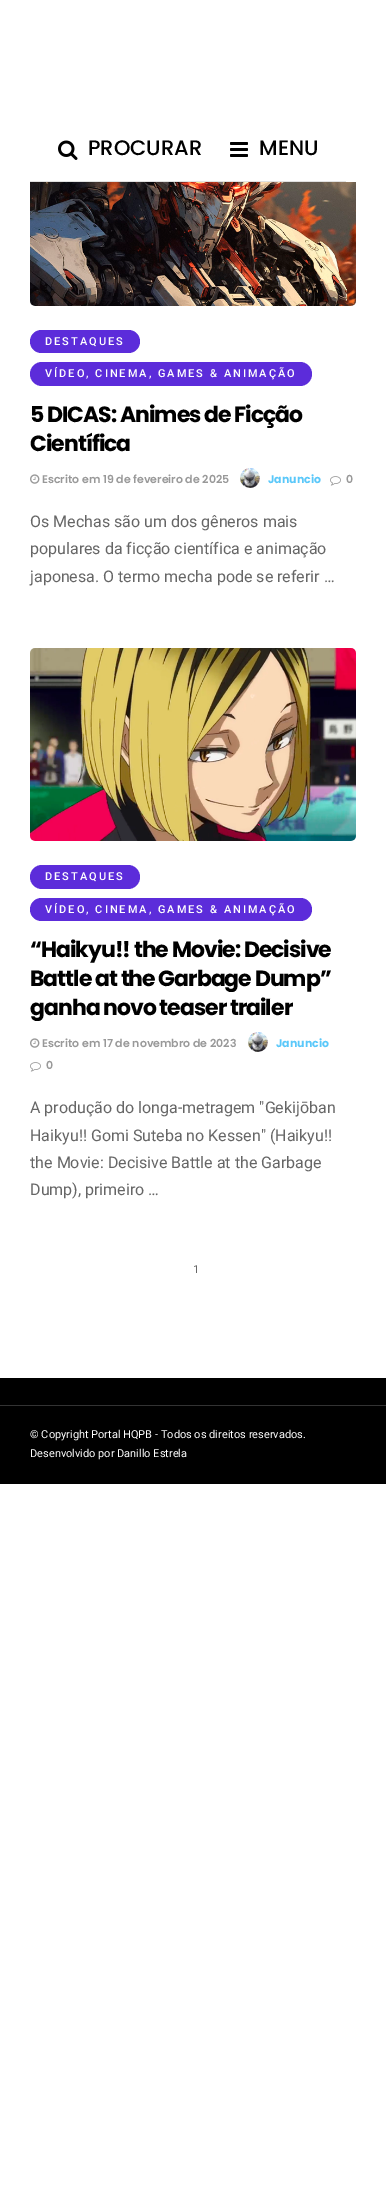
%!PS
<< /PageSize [386 2206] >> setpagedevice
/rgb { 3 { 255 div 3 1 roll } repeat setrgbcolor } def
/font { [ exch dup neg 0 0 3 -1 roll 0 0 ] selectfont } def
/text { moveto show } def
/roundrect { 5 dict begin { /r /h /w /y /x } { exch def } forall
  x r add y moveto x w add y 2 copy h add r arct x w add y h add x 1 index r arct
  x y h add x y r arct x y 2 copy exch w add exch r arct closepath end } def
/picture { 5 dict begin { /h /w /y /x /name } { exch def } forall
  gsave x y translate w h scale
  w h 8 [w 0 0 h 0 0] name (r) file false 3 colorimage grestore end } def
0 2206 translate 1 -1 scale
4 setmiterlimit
255 255 255 rgb
0 0 386 2206 rectfill
225 225 225 rgb
30 181 316 1 rectfill
(img_01.rgb) 58 140 20 20 picture
(img_02.rgb) 230 142 18 15 picture
(img_03.rgb) 30 182 326 124 picture
92 44 218 rgb
30 330 110 23 11.5 roundrect fill
30 362 282 24 12 roundrect fill
(img_04.rgb) 30 474 10 10 picture
(img_05.rgb) 240 468 20 20 picture
(img_06.rgb) 330 476 11 10 picture
(img_07.rgb) 30 648 326 193 picture
30 865 110 24 12 roundrect fill
30 898 282 23 11.5 roundrect fill
(img_04.rgb) 30 1038 10 10 picture
(img_08.rgb) 248 1032 20 20 picture
(img_06.rgb) 30 1062 11 10 picture
0 0 0 rgb
0 1378 386 106 rectfill
51 51 51 rgb
0 1405 386 1 rectfill
/Poppins-Medium 21 font
0 0 0 rgb
(PROCURAR) 88 155 text
(MENU) 259 155 text
/Roboto-Medium 11 font
255 255 255 rgb
45 345 moveto 2 0 (DESTAQUES) ashow
45 377 moveto 2 0 (VÍDEO, CINEMA, GAMES & ANIMAÇÃO) ashow
/Poppins-Bold 22 font
0 0 0 rgb
30 422 moveto -1 0 (5 DICAS: Animes de Ficção) ashow
30 451 moveto -1 0 (Científica) ashow
/Poppins-SemiBold 11 font
153 153 153 rgb
(Escrito em 19 de fevereiro de 2025) 42 483 text
/Poppins-Bold 11 font
90 200 250 rgb
(Januncio) 268 483 text
/Poppins-SemiBold 11 font
153 153 153 rgb
(0) 346 483 text
/Roboto-Regular 16 font
102 102 102 rgb
(Os Mechas são um dos gêneros mais) 30 527 text
(populares da ficção científica e animação) 30 554 text
(japonesa. O termo mecha pode se referir …) 30 582 text
/Roboto-Medium 11 font
255 255 255 rgb
45 880 moveto 2 0 (DESTAQUES) ashow
45 913 moveto 2 0 (VÍDEO, CINEMA, GAMES & ANIMAÇÃO) ashow
/Poppins-Bold 22 font
0 0 0 rgb
30 957 moveto -1 0 (“Haikyu!! the Movie: Decisive) ashow
30 986 moveto -1 0 (Battle at the Garbage Dump”) ashow
30 1015 moveto -1 0 (ganha novo teaser trailer) ashow
/Poppins-SemiBold 11 font
153 153 153 rgb
(Escrito em 17 de novembro de 2023) 42 1047 text
/Poppins-Bold 11 font
90 200 250 rgb
(Januncio) 276 1047 text
/Poppins-SemiBold 11 font
153 153 153 rgb
(0) 46 1069 text
/Roboto-Regular 16 font
102 102 102 rgb
(A produção do longa-metragem "Gekijōban) 30 1113 text
(Haikyu!! Gomi Suteba no Kessen" \(Haikyu!!) 30 1141 text
(the Movie: Decisive Battle at the Garbage) 30 1168 text
(Dump\), primeiro …) 30 1195 text
/Roboto-Regular 11 font
(1) 193 1273 text
255 255 255 rgb
(© Copyright Portal HQPB - Todos os direitos reservados.) 30 1438 text
(Desenvolvido por Danillo Estrela) 30 1457 text
showpage
